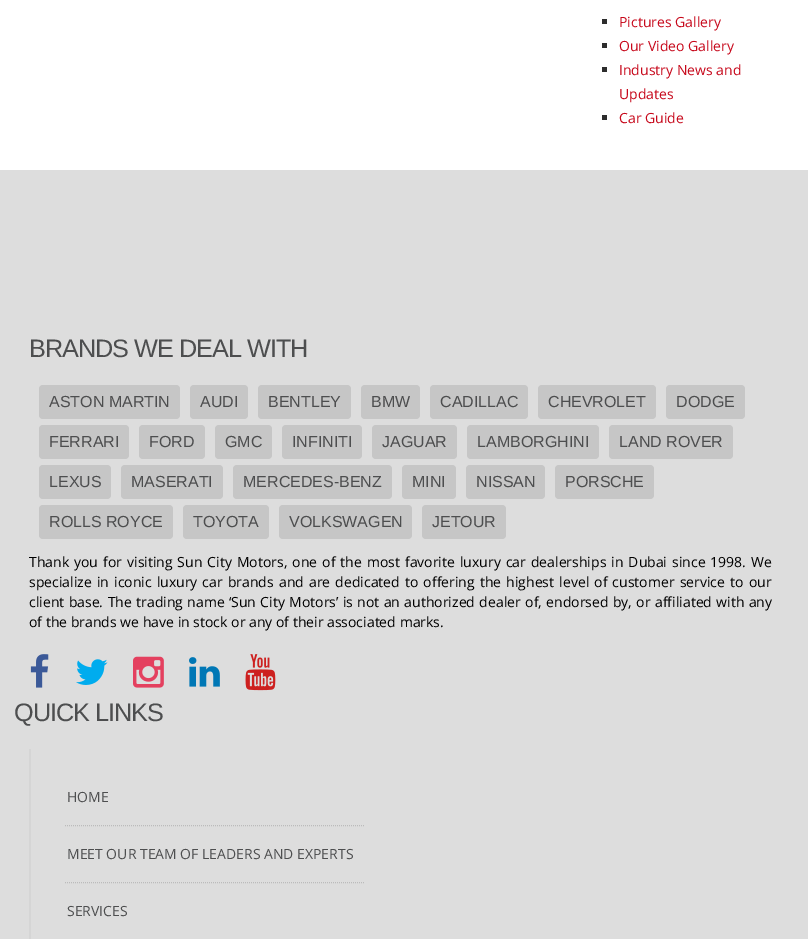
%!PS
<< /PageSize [808 939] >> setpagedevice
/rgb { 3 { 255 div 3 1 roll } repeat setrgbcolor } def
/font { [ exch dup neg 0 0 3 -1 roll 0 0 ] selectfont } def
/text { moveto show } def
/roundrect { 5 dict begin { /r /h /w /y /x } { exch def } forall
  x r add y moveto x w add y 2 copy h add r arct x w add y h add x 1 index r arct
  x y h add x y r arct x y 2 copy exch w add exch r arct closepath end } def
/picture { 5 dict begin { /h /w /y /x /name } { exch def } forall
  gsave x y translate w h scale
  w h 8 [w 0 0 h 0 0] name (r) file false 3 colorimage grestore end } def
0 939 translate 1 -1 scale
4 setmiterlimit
255 255 255 rgb
0 0 808 939 rectfill
45 45 45 rgb
602 19 5 5 rectfill
602 43 5 5 rectfill
602 67 5 5 rectfill
602 115 5 5 rectfill
221 221 221 rgb
0 170 808 769 rectfill
198 198 198 rgb
39 385 141 34 4 roundrect fill
190 385 58 34 4 roundrect fill
258 385 93 34 4 roundrect fill
361 385 59 34 4 roundrect fill
430 385 98 34 4 roundrect fill
538 385 118 34 4 roundrect fill
666 385 79 34 4 roundrect fill
39 425 90 34 4 roundrect fill
139 425 66 34 4 roundrect fill
215 425 57 34 4 roundrect fill
282 425 80 34 4 roundrect fill
372 425 85 34 4 roundrect fill
467 425 132 34 4 roundrect fill
609 425 124 34 4 roundrect fill
39 465 72 34 4 roundrect fill
121 465 102 34 4 roundrect fill
233 465 159 34 4 roundrect fill
402 465 54 34 4 roundrect fill
466 465 79 34 4 roundrect fill
555 465 99 34 4 roundrect fill
39 505 134 34 4 roundrect fill
183 505 86 34 4 roundrect fill
279 505 133 34 4 roundrect fill
422 505 84 34 4 roundrect fill
(img_01.rgb) 30 654 19 34 picture
(img_02.rgb) 76 659 32 26 picture
(img_03.rgb) 133 656 31 32 picture
(img_04.rgb) 189 657 31 30 picture
(img_05.rgb) 245 654 31 37 picture
213 213 213 rgb
29 749 2 190 rectfill
187 187 187 rgb
[1 1] 0 setdash
65 825.5 moveto 300 0 rlineto stroke
65 882.5 moveto 300 0 rlineto stroke
/OpenSans-Regular 14 font
199 8 27 rgb
(Pictures Gallery) 619 27 text
(Our Video Gallery) 619 51 text
(Industry News and) 619 75 text
(Updates) 619 99 text
(Car Guide) 619 123 text
/LiberationSans-Regular 25.25 font
77 78 79 rgb
29 357 moveto -1 0 (BRANDS WE DEAL WITH) ashow
/LiberationSans-Regular 16 font
(ASTON MARTIN) 49 407 text
(AUDI) 200 407 text
(BENTLEY) 268 407 text
(BMW) 371 407 text
(CADILLAC) 440 407 text
(CHEVROLET) 548 407 text
(DODGE) 676 407 text
(FERRARI) 49 447 text
(FORD) 149 447 text
(GMC) 225 447 text
(INFINITI) 292 447 text
(JAGUAR) 382 447 text
(LAMBORGHINI) 477 447 text
(LAND ROVER) 619 447 text
(LEXUS) 49 487 text
(MASERATI) 131 487 text
(MERCEDES-BENZ) 243 487 text
(MINI) 412 487 text
(NISSAN) 476 487 text
(PORSCHE) 565 487 text
(ROLLS ROYCE) 49 527 text
(TOYOTA) 193 527 text
(VOLKSWAGEN) 289 527 text
(JETOUR) 432 527 text
/OpenSans-Regular 14 font
0 0 0 rgb
29 567 moveto 1.4 0 32 (Thank you for visiting Sun City Motors, one of the most favorite luxury car dealerships in Dubai since 1998. We) widthshow
29 587 moveto 1.5 0 32 (specialize in iconic luxury car brands and are dedicated to offering the highest level of customer service to our) widthshow
29 607 moveto 0.75 0 32 (client base. The trading name ‘Sun City Motors’ is not an authorized dealer of, endorsed by, or affiliated with any) widthshow
(of the brands we have in stock or any of their associated marks.) 29 627 text
/LiberationSans-Regular 25.25 font
77 78 79 rgb
14 721 moveto -1 0 (QUICK LINKS) ashow
/OpenSans-Regular 14 font
(HOME) 67 802 text
(MEET OUR TEAM OF LEADERS AND EXPERTS) 67 859 text
(SERVICES) 67 916 text
showpage
